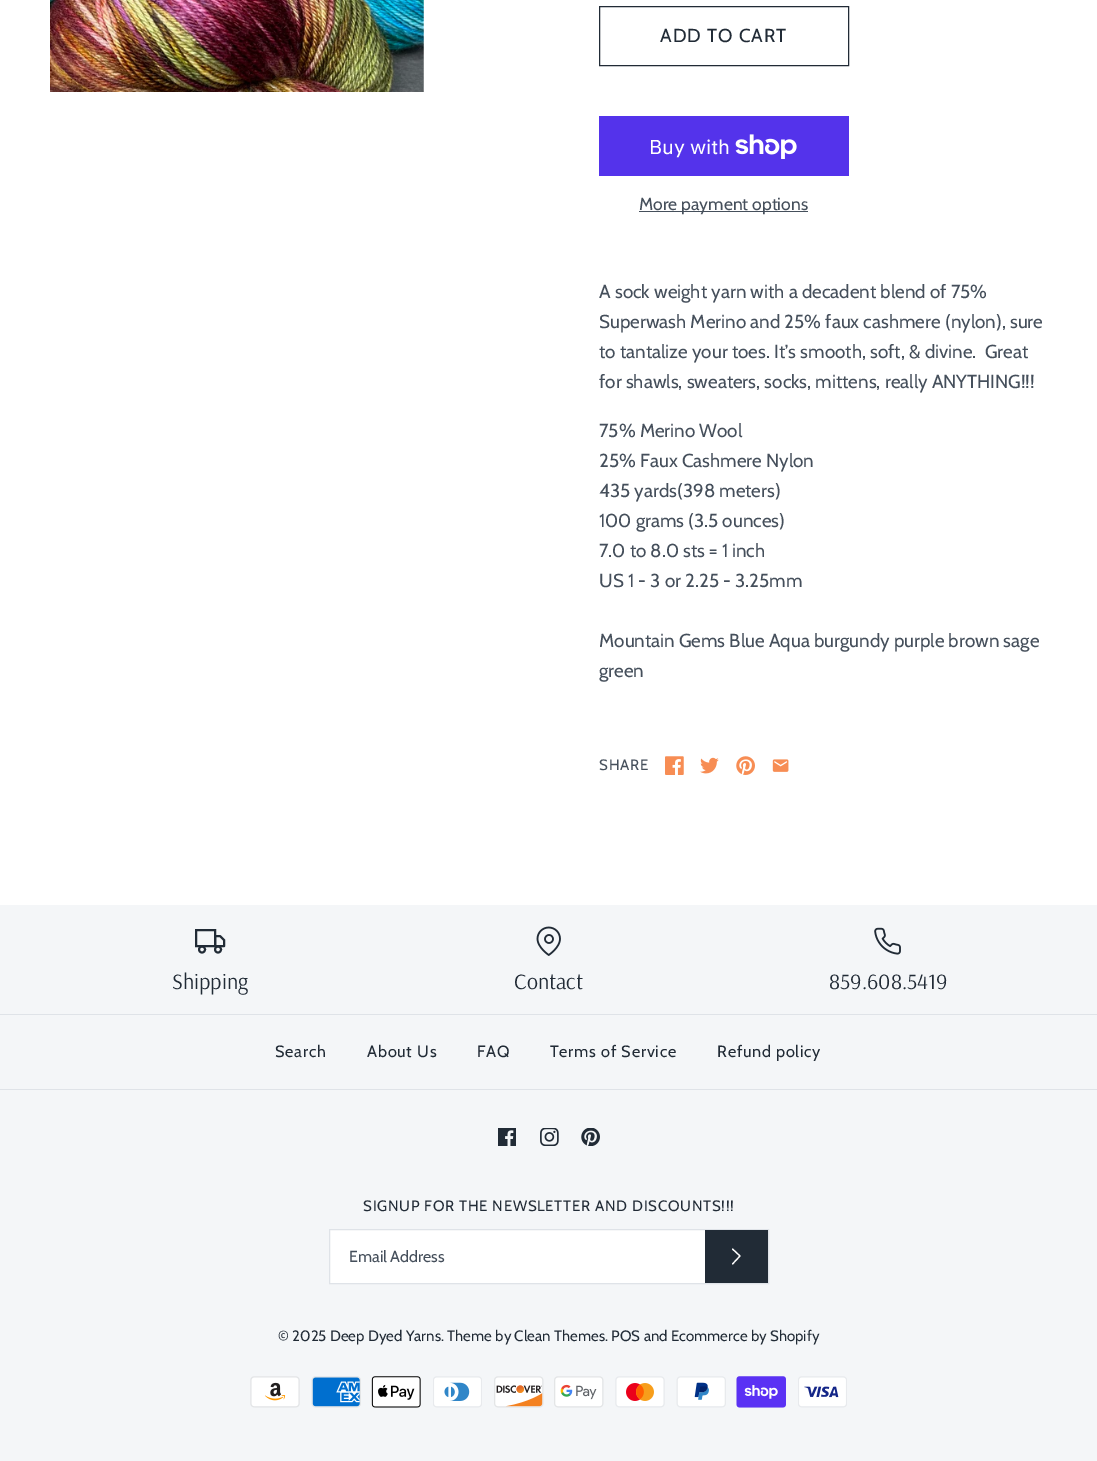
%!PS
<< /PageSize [1097 1461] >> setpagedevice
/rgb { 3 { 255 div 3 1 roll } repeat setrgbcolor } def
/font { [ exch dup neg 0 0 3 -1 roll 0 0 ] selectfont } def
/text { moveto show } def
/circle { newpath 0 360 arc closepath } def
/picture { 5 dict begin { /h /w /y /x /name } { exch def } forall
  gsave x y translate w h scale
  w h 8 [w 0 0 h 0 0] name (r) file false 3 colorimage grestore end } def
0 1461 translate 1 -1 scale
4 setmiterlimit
255 255 255 rgb
0 0 1097 1461 rectfill
(img_01.rgb) 50 0 374 92 picture
33 43 54 rgb
599.5 6.5 249 59 rectstroke
84 51 235 rgb
599 116 250 60 rectfill
(img_02.rgb) 735 134 62 25 picture
69 79 91 rgb
639 211 169 1 rectfill
(img_03.rgb) 665 756 19 19 picture
(img_04.rgb) 700 757 19 17 picture
(img_05.rgb) 736 756 19 19 picture
(img_06.rgb) 772 759 17 13 picture
244 246 248 rgb
0 905 1097 556 rectfill
33 43 54 rgb
2 setlinewidth
196 930 19 16 rectstroke
1.9 setlinewidth
1 setlinecap
1 setlinejoin
215 936 moveto 5 0 rlineto 4 4 rlineto 0 6 rlineto -9 0 rlineto closepath stroke
0 setlinecap
0 setlinejoin
202 949.5 3 circle stroke
218 949.5 3 circle stroke
(img_07.rgb) 536 926 25 30 picture
(img_08.rgb) 874 927 27 28 picture
223 227 232 rgb
0 1014 1097 1 rectfill
0 1089 1097 1 rectfill
(img_09.rgb) 498 1128 18 18 picture
(img_10.rgb) 540 1128 19 18 picture
(img_11.rgb) 581 1128 19 18 picture
255 255 255 rgb
330 1230 375 53 rectfill
223 227 232 rgb
1 setlinewidth
329.5 1229.5 439 54 rectstroke
33 43 54 rgb
705 1230 63 53 rectfill
255 255 255 rgb
1.2 setlinewidth
1 setlinecap
1 setlinejoin
732.5 1264 moveto 7.5 -8 rlineto -7.5 -7 rlineto stroke
(img_12.rgb) 250 1376 50 32 picture
(img_13.rgb) 311 1376 50 32 picture
(img_14.rgb) 371 1376 50 32 picture
(img_15.rgb) 433 1376 49 32 picture
(img_16.rgb) 494 1376 50 32 picture
(img_17.rgb) 554 1376 50 32 picture
(img_18.rgb) 615 1376 50 32 picture
(img_19.rgb) 676 1376 50 32 picture
(img_20.rgb) 736 1376 50 32 picture
(img_21.rgb) 798 1376 49 32 picture
/Cabin-Regular 18.75 font
33 43 54 rgb
660 42 moveto 1 0 (ADD TO CART) ashow
/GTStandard-Regular 20 font
255 255 255 rgb
(Buy with) 649 154 text
/Cabin-Regular 17.5 font
69 79 91 rgb
(More payment options) 639 210 text
/Cabin-Regular 18.75 font
(A sock weight yarn with a decadent blend of 75%) 599 298 text
(Superwash Merino and 25% faux cashmere \(nylon\), sure) 599 328 text
(to tantalize your toes. It’s smooth, soft, & divine.  Great) 599 358 text
(for shawls, sweaters, socks, mittens, really ANYTHING!!!) 599 388 text
(75% Merino Wool) 599 437 text
(25% Faux Cashmere Nylon) 599 467 text
(435 yards\(398 meters\)) 599 497 text
(100 grams \(3.5 ounces\)) 599 527 text
(7.0 to 8.0 sts = 1 inch) 599 557 text
(US 1 - 3 or 2.25 - 3.25mm) 599 587 text
(Mountain Gems Blue Aqua burgundy purple brown sage) 599 647 text
(green) 599 677 text
/Cabin-Regular 15 font
599 770 moveto 0.75 0 (SHARE) ashow
/Arsenal-Regular 22 font
33 43 54 rgb
(Shipping) 172 989 text
(Contact) 514 989 text
(859.608.5419) 829 989 text
/Cabin-Regular 16.25 font
275 1057 moveto 0.75 0 (Search) ashow
367 1057 moveto 0.75 0 (About Us) ashow
477 1057 moveto 0.75 0 (FAQ) ashow
550 1057 moveto 0.75 0 (Terms of Service) ashow
717 1057 moveto 0.75 0 (Refund policy) ashow
/Cabin-Regular 15 font
363 1211 moveto 0.75 0 (SIGNUP FOR THE NEWSLETTER AND DISCOUNTS!!!) ashow
/Cabin-Regular 16 font
69 79 91 rgb
(Email Address) 349 1262 text
/Cabin-Regular 15 font
33 43 54 rgb
(© 2025 Deep Dyed Yarns. Theme by Clean Themes. POS and Ecommerce by Shopify) 278 1341 text
showpage
